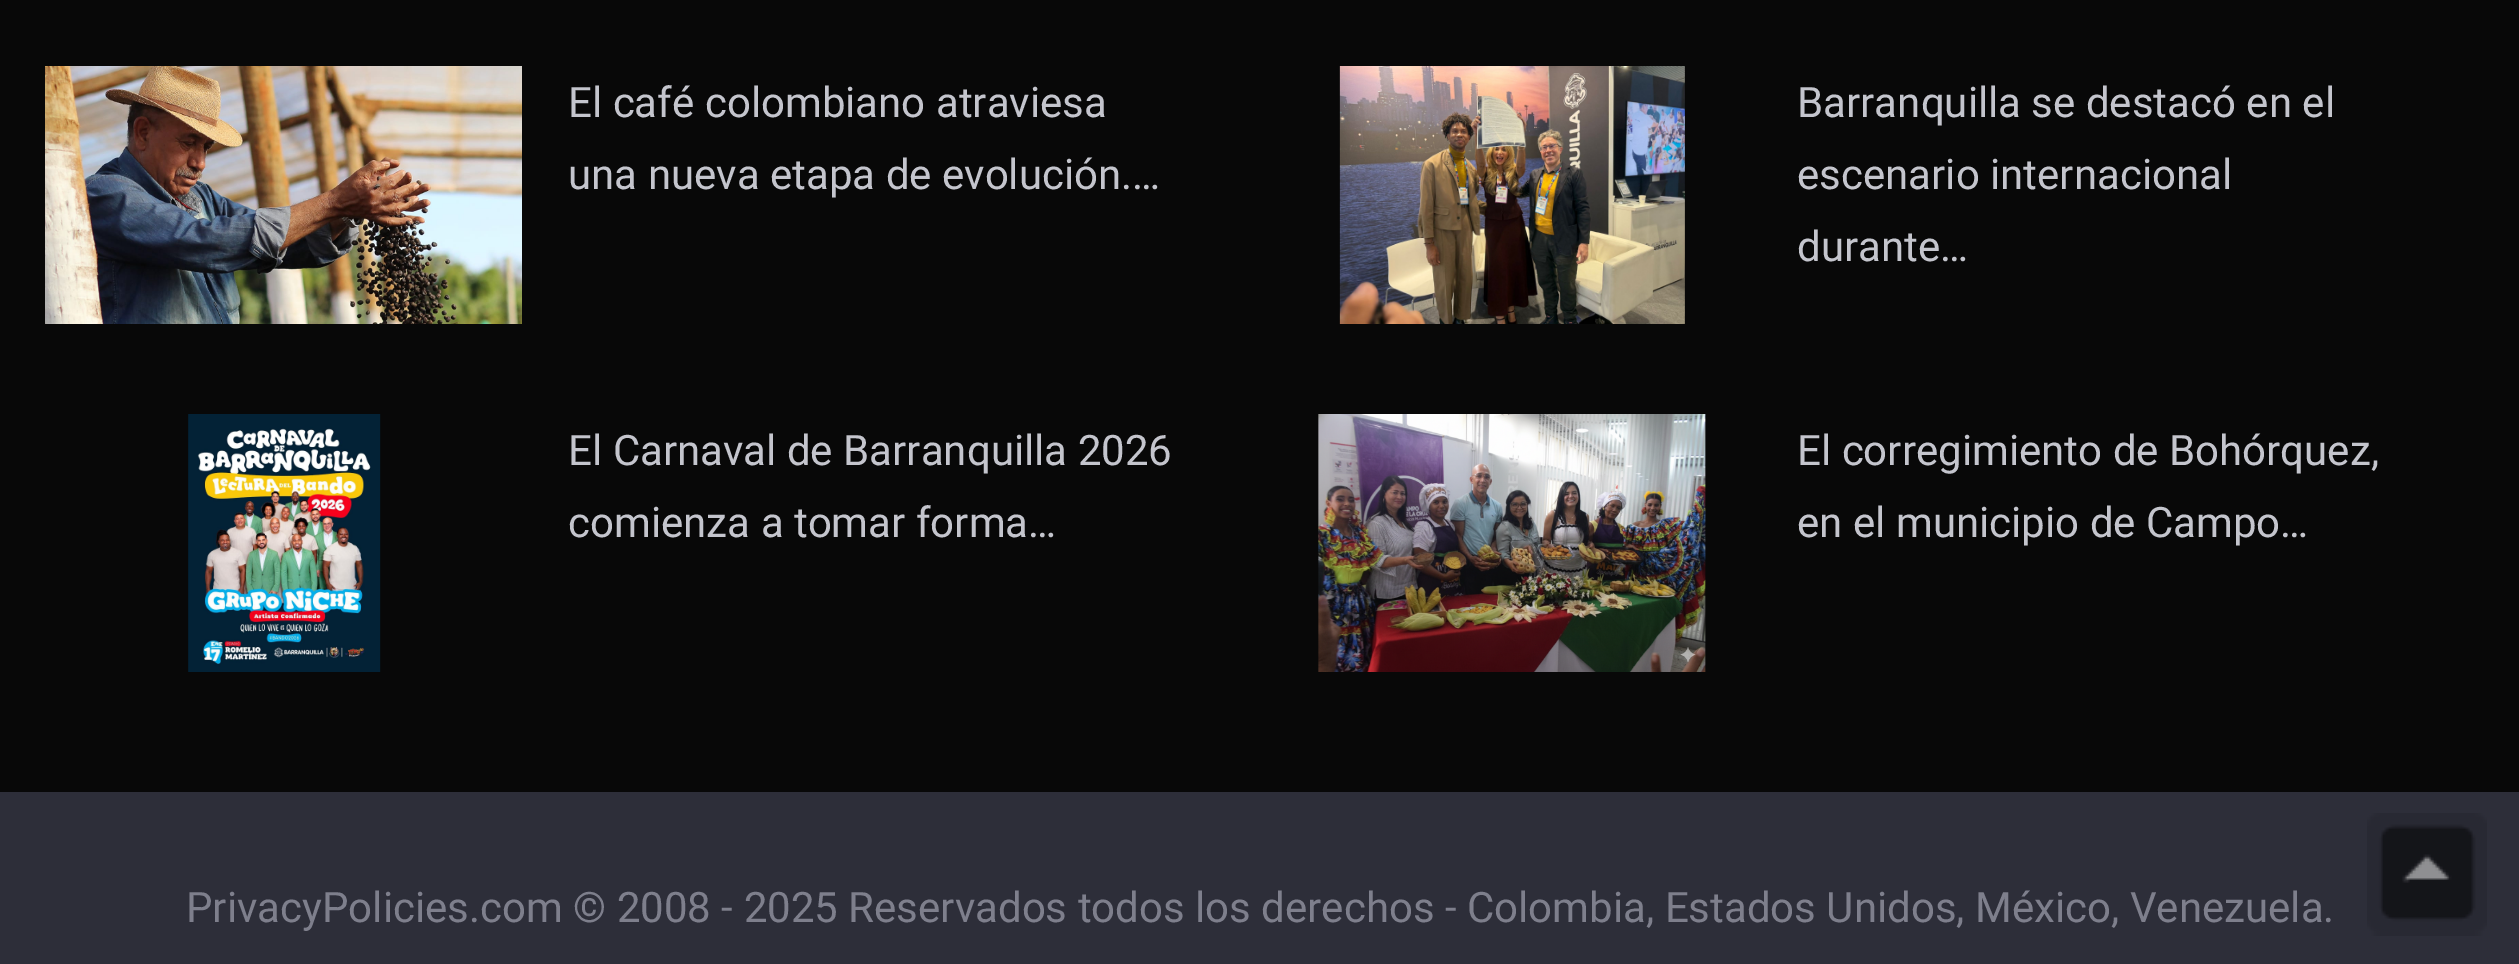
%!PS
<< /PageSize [2519 964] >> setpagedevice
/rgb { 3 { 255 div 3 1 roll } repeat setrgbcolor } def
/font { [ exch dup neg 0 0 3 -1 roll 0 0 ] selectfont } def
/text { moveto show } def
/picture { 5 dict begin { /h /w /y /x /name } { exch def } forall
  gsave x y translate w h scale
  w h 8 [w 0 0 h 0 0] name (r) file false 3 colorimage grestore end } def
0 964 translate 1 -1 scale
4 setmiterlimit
45 46 57 rgb
0 0 2519 964 rectfill
8 8 8 rgb
0 0 2519 792 rectfill
(img_01.rgb) 45 66 477 258 picture
(img_02.rgb) 188 414 193 258 picture
(img_03.rgb) 1339 66 346 258 picture
(img_04.rgb) 1318 414 388 258 picture
(img_05.rgb) 2367 813 120 123 picture
/Roboto-Regular 42 font
196 197 205 rgb
(El café colombiano atraviesa) 568 117 text
(una nueva etapa de evolución.…) 568 189 text
(El Carnaval de Barranquilla 2026) 568 465 text
(comienza a tomar forma…) 568 537 text
(Barranquilla se destacó en el) 1797 117 text
(escenario internacional) 1797 189 text
(durante…) 1797 261 text
(El corregimiento de Bohórquez,) 1797 465 text
(en el municipio de Campo…) 1797 537 text
126 127 140 rgb
(PrivacyPolicies.com © 2008 - 2025 Reservados todos los derechos - Colombia, Estados Unidos, México, Venezuela.) 186 922 text
showpage
